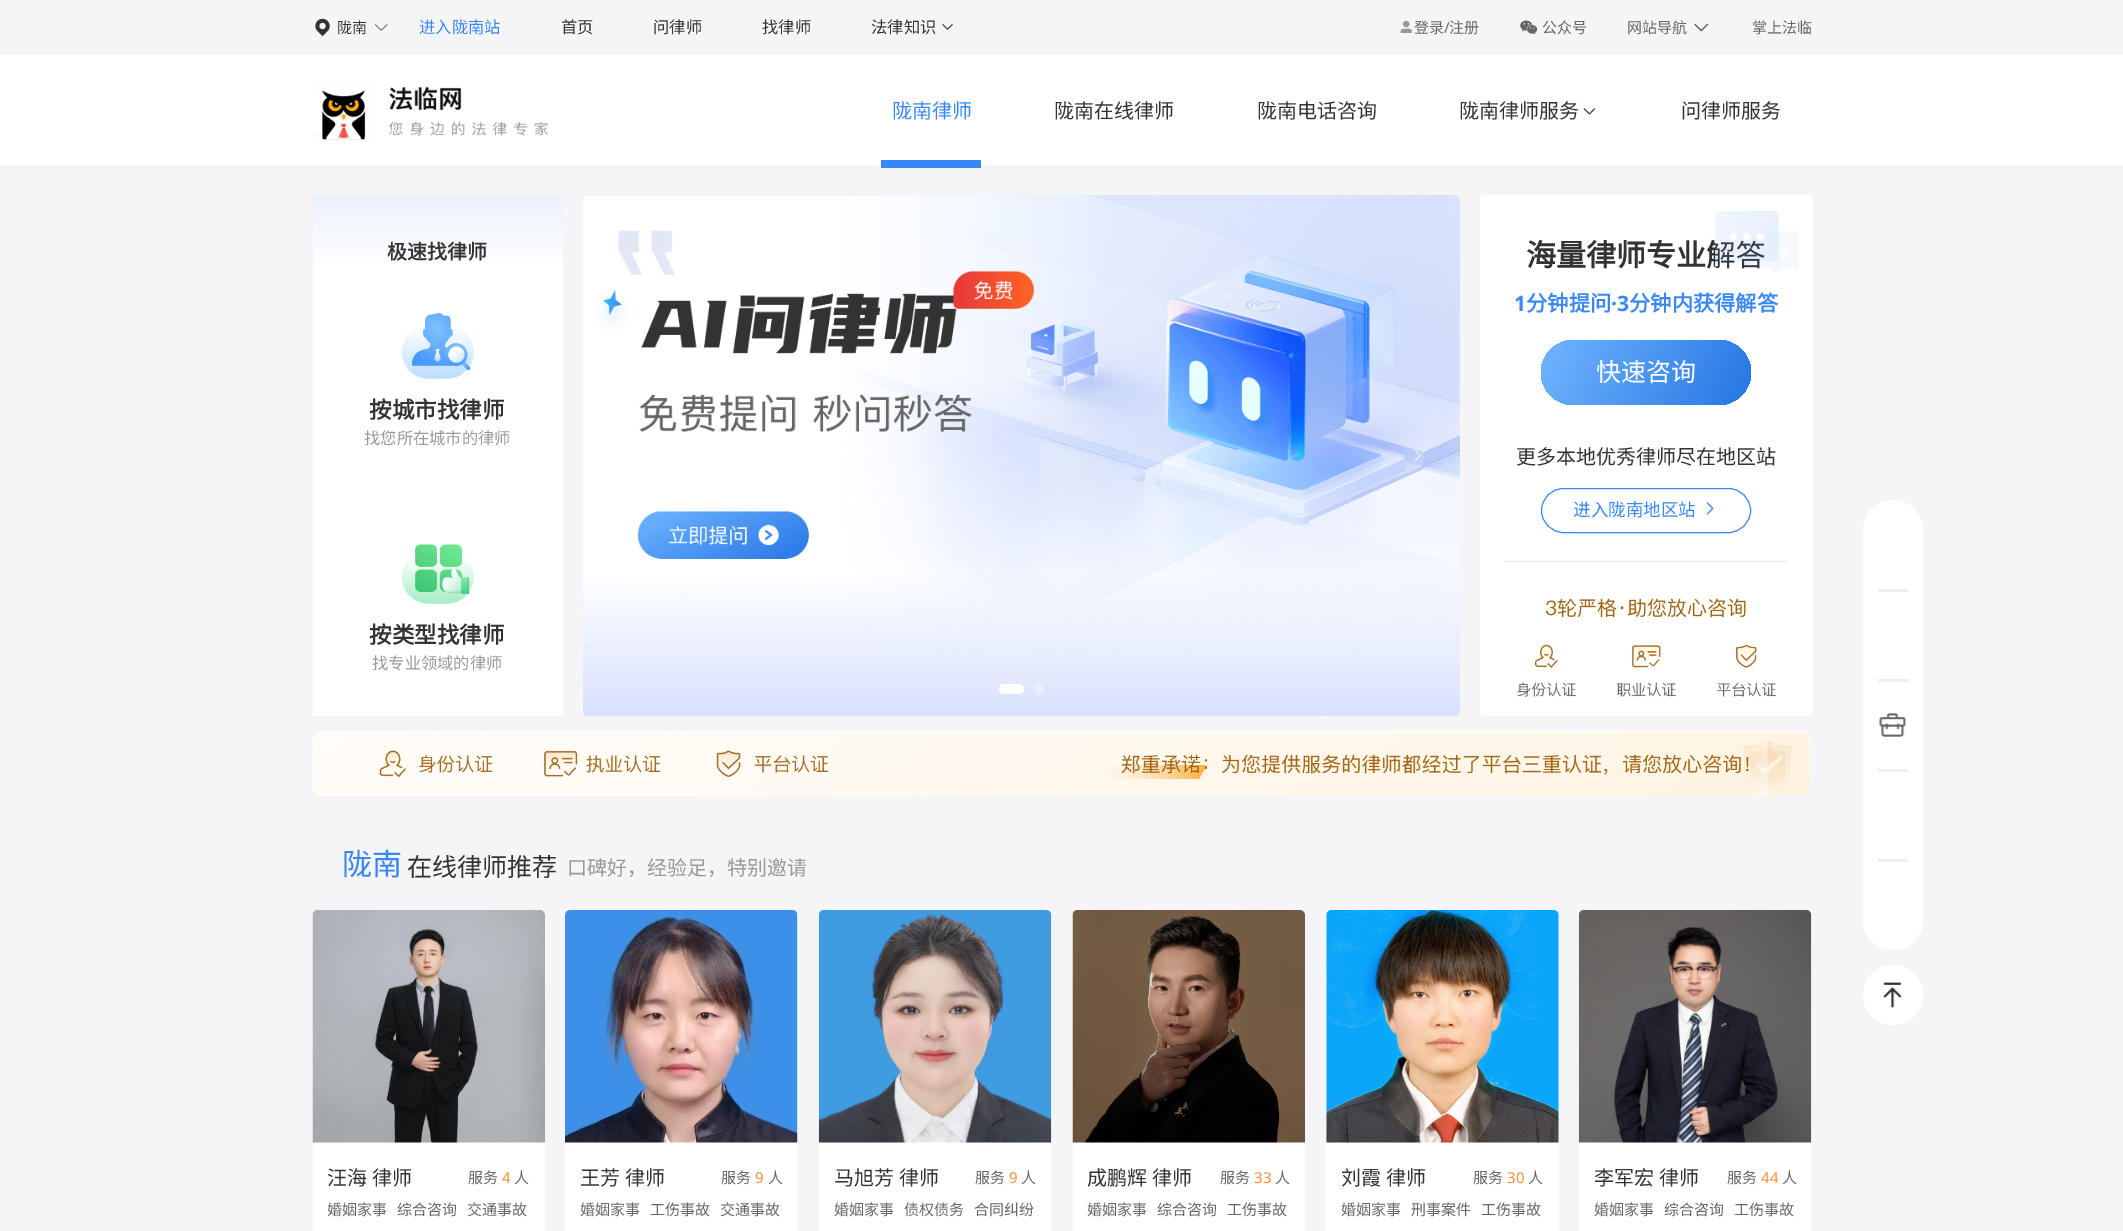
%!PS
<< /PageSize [2123 1231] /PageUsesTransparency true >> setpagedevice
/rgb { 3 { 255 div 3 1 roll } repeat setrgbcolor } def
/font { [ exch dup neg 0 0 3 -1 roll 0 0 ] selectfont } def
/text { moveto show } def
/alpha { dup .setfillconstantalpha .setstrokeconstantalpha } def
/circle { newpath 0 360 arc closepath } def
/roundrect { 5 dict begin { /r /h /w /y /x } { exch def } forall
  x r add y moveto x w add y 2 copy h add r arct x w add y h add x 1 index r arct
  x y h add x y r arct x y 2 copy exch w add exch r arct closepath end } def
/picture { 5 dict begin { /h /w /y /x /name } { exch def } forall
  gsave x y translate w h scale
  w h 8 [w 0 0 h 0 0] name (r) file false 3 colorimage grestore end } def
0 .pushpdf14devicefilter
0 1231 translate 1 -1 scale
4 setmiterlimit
245 245 247 rgb
0 0 2123 1231 rectfill
255 255 255 rgb
0 55 2123 110 rectfill
(img_01.rgb) 315 18 15 19 picture
(img_02.rgb) 375 24 13 7 picture
(img_03.rgb) 942 24 11 6 picture
(img_04.rgb) 1400 20 12 13 picture
(img_05.rgb) 1520 20 18 15 picture
(img_06.rgb) 1694 23 15 9 picture
(img_07.rgb) 313 80 235 60 picture
56 135 245 rgb
881 160 100 8 rectfill
(img_08.rgb) 1583 108 12 7 picture
255 255 255 rgb
313 266 250 450 rectfill
gsave 313 195 moveto 250 0 rlineto 0 71 rlineto -250 0 rlineto closepath clip newpath
<< /ShadingType 2 /ColorSpace /DeviceRGB /Coords [438 195 438 266] /Extend [true true] /Function << /FunctionType 2 /Domain [0 1] /C0 [0.922 0.945 1] /C1 [1 1 1] /N 1 >> >> shfill grestore
(img_09.rgb) 402 312 72 67 picture
(img_10.rgb) 402 544 72 60 picture
(img_11.rgb) 583 195 877 521 picture
(img_12.rgb) 1415 450 6 11 picture
999 684 25 10 5 roundrect fill
0.3 alpha
1039 689 5 circle fill
1 alpha
1480 195 333 521 5 roundrect fill
229 231 235 rgb
1505 561 283 1 rectfill
gsave 1541 340 210 65 32.5 roundrect clip newpath
<< /ShadingType 2 /ColorSpace /DeviceRGB /Coords [1549 325 1744 420] /Extend [true true] /Function << /FunctionType 2 /Domain [0 1] /C0 [0.443 0.71 1] /C1 [0.149 0.463 0.894] /N 1 >> >> shfill grestore
56 135 245 rgb
1541.5 488.5 209 44 22 roundrect stroke
(img_14.rgb) 1706 502 8 13 picture
(img_15.rgb) 1517 598 260 99 picture
(img_16.rgb) 312 731 1500 66 picture
255 255 255 rgb
313 910 232 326 5 roundrect fill
(img_17.rgb) 312 910 233 233 picture
565 910 233 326 5 roundrect fill
(img_18.rgb) 565 910 233 233 picture
819 910 232 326 5 roundrect fill
(img_19.rgb) 818 910 234 233 picture
1073 910 232 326 5 roundrect fill
(img_20.rgb) 1072 910 233 233 picture
1326 910 233 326 5 roundrect fill
(img_21.rgb) 1326 910 233 233 picture
1579 910 232 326 5 roundrect fill
(img_22.rgb) 1578 910 234 233 picture
1863 500 60 450 30 roundrect fill
238 238 238 rgb
1878 589 30 3 rectfill
1878 679 30 3 rectfill
(img_23.rgb) 1879 713 28 24 picture
1878 769 30 3 rectfill
1878 859 30 3 rectfill
255 255 255 rgb
1893 995 30 circle fill
(img_24.rgb) 1883 982 19 26 picture
/NotoSansCJKSC-Regular 15 font
51 51 51 rgb
(陇南) 337 33 text
/NotoSansCJKSC-Regular 16.25 font
56 135 245 rgb
(进入陇南站) 419 33 text
51 51 51 rgb
(首页) 561 33 text
(问律师) 653 33 text
(找律师) 762 33 text
(法律知识) 871 33 text
/NotoSansCJKSC-Regular 15 font
102 102 102 rgb
(登录) 1414 33 text
/NotoSans-Regular 15 font
(/) 1444 33 text
/NotoSansCJKSC-Regular 15 font
(注册) 1449 33 text
(公众号) 1542 33 text
(网站导航) 1627 33 text
(掌上法临) 1752 33 text
/NotoSansCJKSC-Regular 20 font
56 135 245 rgb
(陇南律师) 892 118 text
51 51 51 rgb
(陇南在线律师) 1054 118 text
(陇南电话咨询) 1257 118 text
(陇南律师服务) 1459 118 text
(问律师服务) 1681 118 text
/NotoSansCJKSC-Bold 20 font
(极速找律师) 387 259 text
/NotoSansCJKSC-Bold 22.5 font
(按城市找律师) 369 418 text
/NotoSansCJKSC-Regular 16.25 font
153 153 153 rgb
(找您所在城市的律师) 364 444 text
/NotoSansCJKSC-Bold 22.5 font
51 51 51 rgb
(按类型找律师) 369 643 text
/NotoSansCJKSC-Regular 16.25 font
153 153 153 rgb
(找专业领域的律师) 372 669 text
/NotoSansCJKSC-Bold 30 font
51 51 51 rgb
(海量律师专业解答) 1526 266 text
(img_13.rgb) 1715 211 84 61 picture
/NotoSans-Bold 21.25 font
56 135 245 rgb
(1) 1514 311 text
/NotoSansCJKSC-Bold 21.25 font
(分钟提问) 1526 311 text
/NotoSans-Bold 21.25 font
(·3) 1611 311 text
/NotoSansCJKSC-Bold 21.25 font
(分钟内获得解答) 1629 311 text
/NotoSansCJKSC-Regular 25 font
255 255 255 rgb
(快速咨询) 1596 381 text
/NotoSansCJKSC-Regular 20 font
51 51 51 rgb
(更多本地优秀律师尽在地区站) 1516 464 text
/NotoSansCJKSC-Regular 17.5 font
56 135 245 rgb
(进入陇南地区站) 1573 516 text
/NotoSansCJKSC-Regular 30 font
(陇南) 342 875 text
/NotoSansCJKSC-Regular 25 font
51 51 51 rgb
(在线律师推荐) 407 876 text
/NotoSansCJKSC-Regular 20 font
153 153 153 rgb
(口碑好，经验足，特别邀请) 567 875 text
51 51 51 rgb
327 1185 moveto 1 0 32 (汪海 律师) widthshow
/NotoSansCJKSC-Regular 15 font
102 102 102 rgb
(服务) 468 1183 text
/NotoSans-Regular 15 font
255 138 54 rgb
(4) 502 1183 text
/NotoSansCJKSC-Regular 15 font
102 102 102 rgb
(人) 514 1183 text
gsave
328 1199 202 22 rectclip
(婚姻家事) 327 1215 text
grestore
(综合咨询) 397 1215 text
(交通事故) 467 1215 text
/NotoSansCJKSC-Regular 20 font
51 51 51 rgb
580 1185 moveto 1 0 32 (王芳 律师) widthshow
/NotoSansCJKSC-Regular 15 font
102 102 102 rgb
(服务) 721 1183 text
/NotoSans-Regular 15 font
255 138 54 rgb
(9) 755 1183 text
/NotoSansCJKSC-Regular 15 font
102 102 102 rgb
(人) 768 1183 text
(婚姻家事) 580 1215 text
(工伤事故) 650 1215 text
(交通事故) 720 1215 text
/NotoSansCJKSC-Regular 20 font
51 51 51 rgb
834 1185 moveto 1 0 32 (马旭芳 律师) widthshow
/NotoSansCJKSC-Regular 15 font
102 102 102 rgb
(服务) 975 1183 text
/NotoSans-Regular 15 font
255 138 54 rgb
(9) 1009 1183 text
/NotoSansCJKSC-Regular 15 font
102 102 102 rgb
(人) 1021 1183 text
(婚姻家事) 834 1215 text
(债权债务) 904 1215 text
(合同纠纷) 974 1215 text
/NotoSansCJKSC-Regular 20 font
51 51 51 rgb
1087 1185 moveto 1 0 32 (成鹏辉 律师) widthshow
/NotoSansCJKSC-Regular 15 font
102 102 102 rgb
(服务) 1220 1183 text
/NotoSans-Regular 15 font
255 138 54 rgb
(33) 1254 1183 text
/NotoSansCJKSC-Regular 15 font
102 102 102 rgb
(人) 1275 1183 text
(婚姻家事) 1087 1215 text
(综合咨询) 1157 1215 text
(工伤事故) 1227 1215 text
/NotoSansCJKSC-Regular 20 font
51 51 51 rgb
1341 1185 moveto 1 0 32 (刘霞 律师) widthshow
/NotoSansCJKSC-Regular 15 font
102 102 102 rgb
(服务) 1473 1183 text
/NotoSans-Regular 15 font
255 138 54 rgb
(30) 1507 1183 text
/NotoSansCJKSC-Regular 15 font
102 102 102 rgb
(人) 1528 1183 text
(婚姻家事) 1341 1215 text
(刑事案件) 1411 1215 text
(工伤事故) 1481 1215 text
/NotoSansCJKSC-Regular 20 font
51 51 51 rgb
1594 1185 moveto 1 0 32 (李军宏 律师) widthshow
/NotoSansCJKSC-Regular 15 font
102 102 102 rgb
(服务) 1727 1183 text
/NotoSans-Regular 15 font
255 138 54 rgb
(44) 1761 1183 text
/NotoSansCJKSC-Regular 15 font
102 102 102 rgb
(人) 1782 1183 text
(婚姻家事) 1594 1215 text
(综合咨询) 1664 1215 text
(工伤事故) 1734 1215 text
.poppdf14devicefilter showpage
